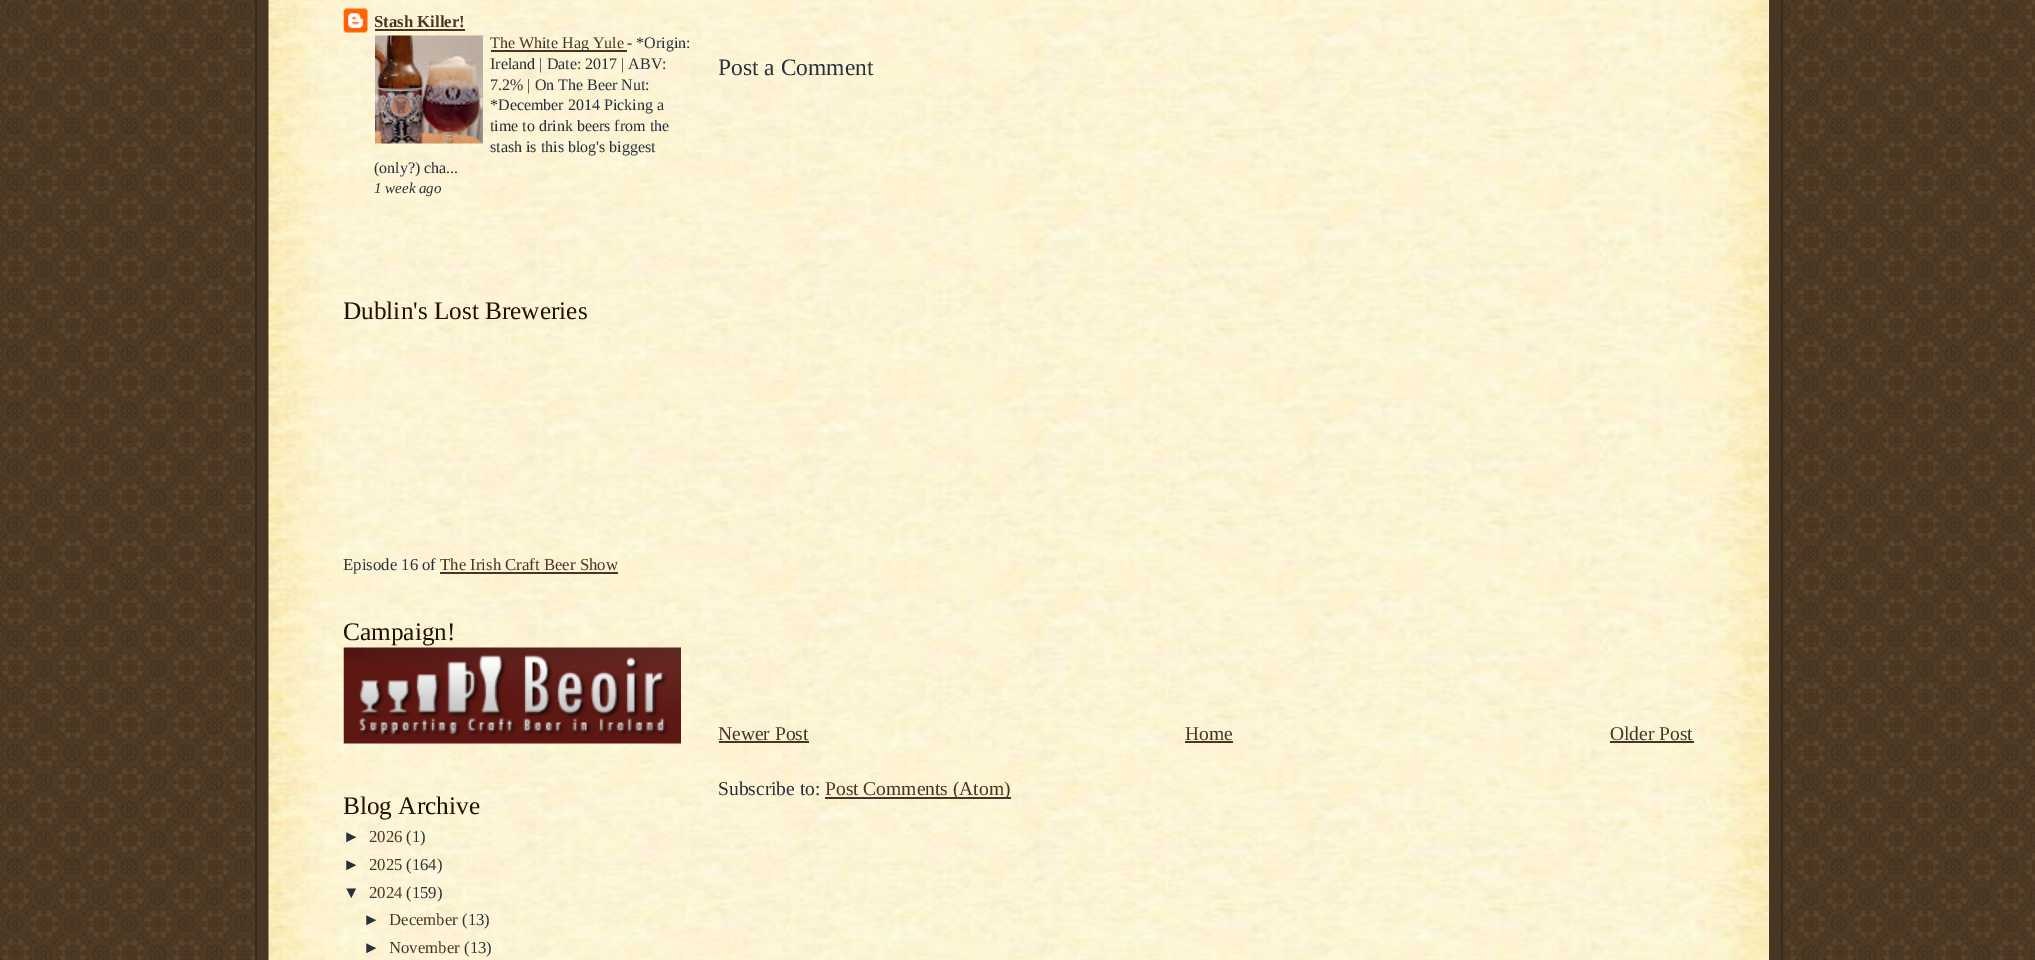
%!PS
<< /PageSize [2035 960] >> setpagedevice
/rgb { 3 { 255 div 3 1 roll } repeat setrgbcolor } def
/font { [ exch dup neg 0 0 3 -1 roll 0 0 ] selectfont } def
/text { moveto show } def
/picture { 5 dict begin { /h /w /y /x /name } { exch def } forall
  gsave x y translate w h scale
  w h 8 [w 0 0 h 0 0] name (r) file false 3 colorimage grestore end } def
0 960 translate 1 -1 scale
4 setmiterlimit
255 255 255 rgb
0 0 2035 960 rectfill
(img_01.rgb) 0 0 2035 960 picture
71 54 36 rgb
257 0 1524 960 rectfill
51 42 36 rgb
1781 0 2 960 rectfill
255 0 2 960 rectfill
255 243 219 rgb
1768 0 1 960 rectfill
(img_02.rgb) 268 0 1501 960 picture
(img_03.rgb) 343 8 25 25 picture
71 54 36 rgb
375 29 90 2 rectfill
(img_04.rgb) 375 35 108 109 picture
491 50 136 2 rectfill
440 572 178 2 rectfill
(img_05.rgb) 343 647 338 97 picture
719 741 90 2 rectfill
1185 741 48 2 rectfill
1610 741 84 2 rectfill
825 797 186 2 rectfill
/LiberationSerif-Bold 16.75 font
(Stash Killer!) 374 27 text
/LiberationSerif-Regular 16 font
(The White Hag Yule) 490 48 text
41 48 59 rgb
(- *Origin:) 627 48 text
(Ireland | Date: 2017 | ABV:) 490 69 text
(7.2% | On The Beer Nut:) 490 90 text
(*December 2014 Picking a) 490 110 text
(time to drink beers from the) 490 131 text
(stash is this blog's biggest) 490 152 text
(\(only?\) cha...) 374 173 text
/LiberationSerif-Italic 15 font
(1 week ago) 374 193 text
gsave
344 0 375 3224 rectclip
/LiberationSerif-Regular 25.25 font
33 17 4 rgb
(Dublin's Lost Breweries) 343 319 text
grestore
/LiberationSerif-Regular 16.75 font
(Episode 16 of) 343 570 text
71 54 36 rgb
(The Irish Craft Beer Show) 440 570 text
gsave
344 0 375 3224 rectclip
/LiberationSerif-Regular 25.25 font
33 17 4 rgb
(Campaign!) 343 640 text
(Blog Archive) 343 814 text
grestore
/LiberationSans-Regular 16.75 font
41 48 59 rgb
(►) 343 842 text
/LiberationSerif-Regular 16.75 font
71 54 36 rgb
(2026) 369 842 text
41 48 59 rgb
(\(1\)) 406 842 text
/LiberationSans-Regular 16.75 font
(►) 343 870 text
/LiberationSerif-Regular 16.75 font
71 54 36 rgb
(2025) 369 870 text
41 48 59 rgb
(\(164\)) 406 870 text
/LiberationSans-Regular 16.75 font
(▼) 343 898 text
/LiberationSerif-Regular 16.75 font
71 54 36 rgb
(2024) 369 898 text
41 48 59 rgb
(\(159\)) 406 898 text
/LiberationSans-Regular 16.75 font
(►) 363 925 text
/LiberationSerif-Regular 16.75 font
71 54 36 rgb
(December) 389 925 text
41 48 59 rgb
(\(13\)) 462 925 text
/LiberationSans-Regular 16.75 font
(►) 363 953 text
/LiberationSerif-Regular 16.75 font
71 54 36 rgb
(November) 389 953 text
41 48 59 rgb
(\(13\)) 464 953 text
gsave
719 0 975 863 rectclip
/LiberationSerif-Regular 23.5 font
(Post a Comment) 718 75 text
grestore
/LiberationSerif-Regular 19.5 font
71 54 36 rgb
(Newer Post) 718 740 text
(Home) 1185 740 text
(Older Post) 1610 740 text
41 48 59 rgb
(Subscribe to:) 718 795 text
71 54 36 rgb
(Post Comments \(Atom\)) 825 795 text
showpage
